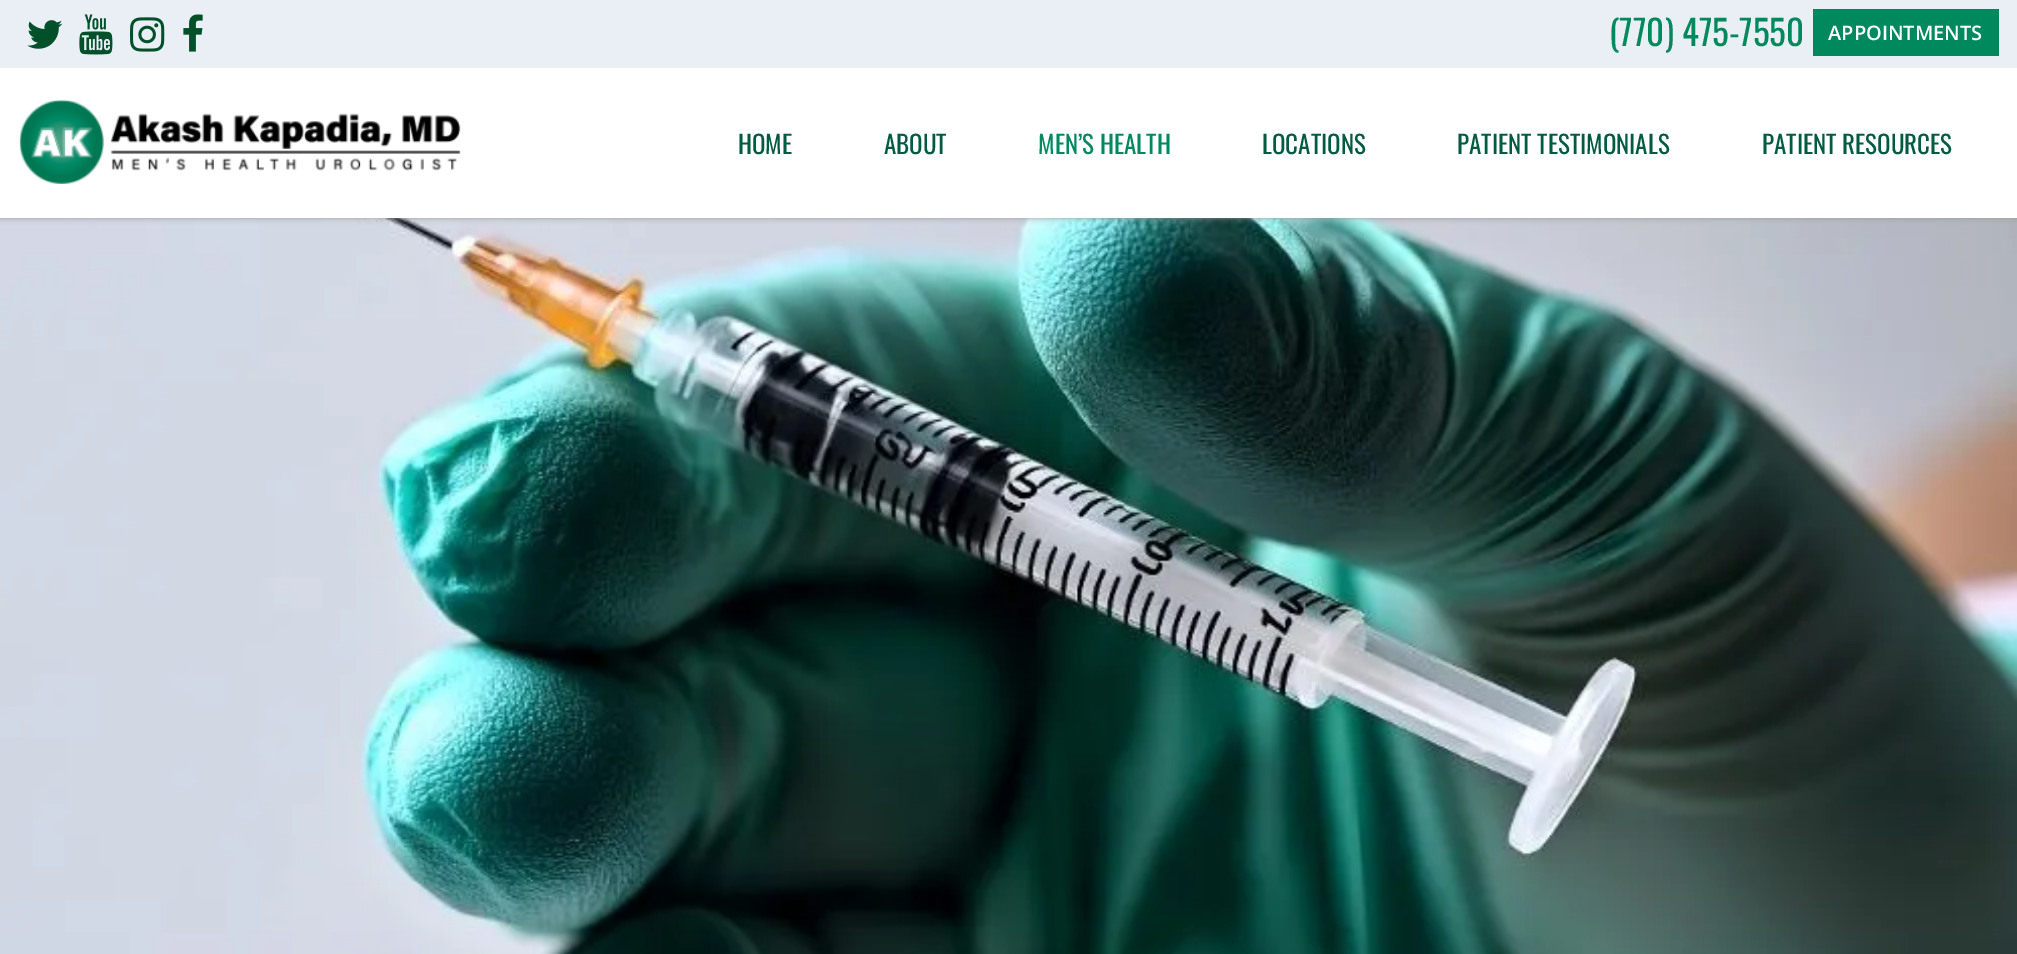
%!PS
<< /PageSize [2017 954] /PageUsesTransparency true >> setpagedevice
/rgb { 3 { 255 div 3 1 roll } repeat setrgbcolor } def
/font { [ exch dup neg 0 0 3 -1 roll 0 0 ] selectfont } def
/text { moveto show } def
/alpha { dup .setfillconstantalpha .setstrokeconstantalpha } def
/roundrect { 5 dict begin { /r /h /w /y /x } { exch def } forall
  x r add y moveto x w add y 2 copy h add r arct x w add y h add x 1 index r arct
  x y h add x y r arct x y 2 copy exch w add exch r arct closepath end } def
/shadow { 12 dict begin { /a /b /q /h /w /y /x } { exch def } forall gsave /was 0 def
  9 -2 -9 { dup b mul 4 div /e exch def 1 sub .425 mul 2.718 exch exp 1 add a .99 .min exch div /now exch def
    1 1 now sub 1 was sub div sub alpha /was now def
    w h .min e 2 mul add 0 gt { x e sub y e sub w e 2 mul add h e 2 mul add
      q e add b .6 mul add w h .min 2 div e add .min 0 .max roundrect fill } if } for grestore end } def
/picture { 5 dict begin { /h /w /y /x /name } { exch def } forall
  gsave x y translate w h scale
  w h 8 [w 0 0 h 0 0] name (r) file false 3 colorimage grestore end } def
0 .pushpdf14devicefilter
0 954 translate 1 -1 scale
4 setmiterlimit
255 255 255 rgb
0 0 2017 954 rectfill
(img_06.rgb) 0 218 2017 736 picture
153 153 153 rgb
0 0 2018 218 0 3 1 shadow
255 255 255 rgb
0 68 2017 150 rectfill
234 239 246 rgb
0 0 2017 68 rectfill
(img_01.rgb) 27 20 36 29 picture
(img_02.rgb) 79 14 34 41 picture
(img_03.rgb) 130 17 35 35 picture
(img_04.rgb) 183 14 20 38 picture
0 137 93 rgb
1813 9 186 47 rectfill
(img_05.rgb) 19 99 442 85 picture
/Oswald-Regular 35 font
(\(770\) 475-7550) 1609 46 text
/OpenSans-SemiBold 20 font
255 255 255 rgb
(APPOINTMENTS) 1828 40 text
/Oswald-Regular 25 font
0 91 65 rgb
(HOME) 738 154 text
(ABOUT) 884 154 text
0 137 93 rgb
(MEN’S HEALTH) 1038 154 text
0 91 65 rgb
(LOCATIONS) 1262 154 text
(PATIENT TESTIMONIALS) 1457 154 text
(PATIENT RESOURCES) 1762 154 text
.poppdf14devicefilter showpage
